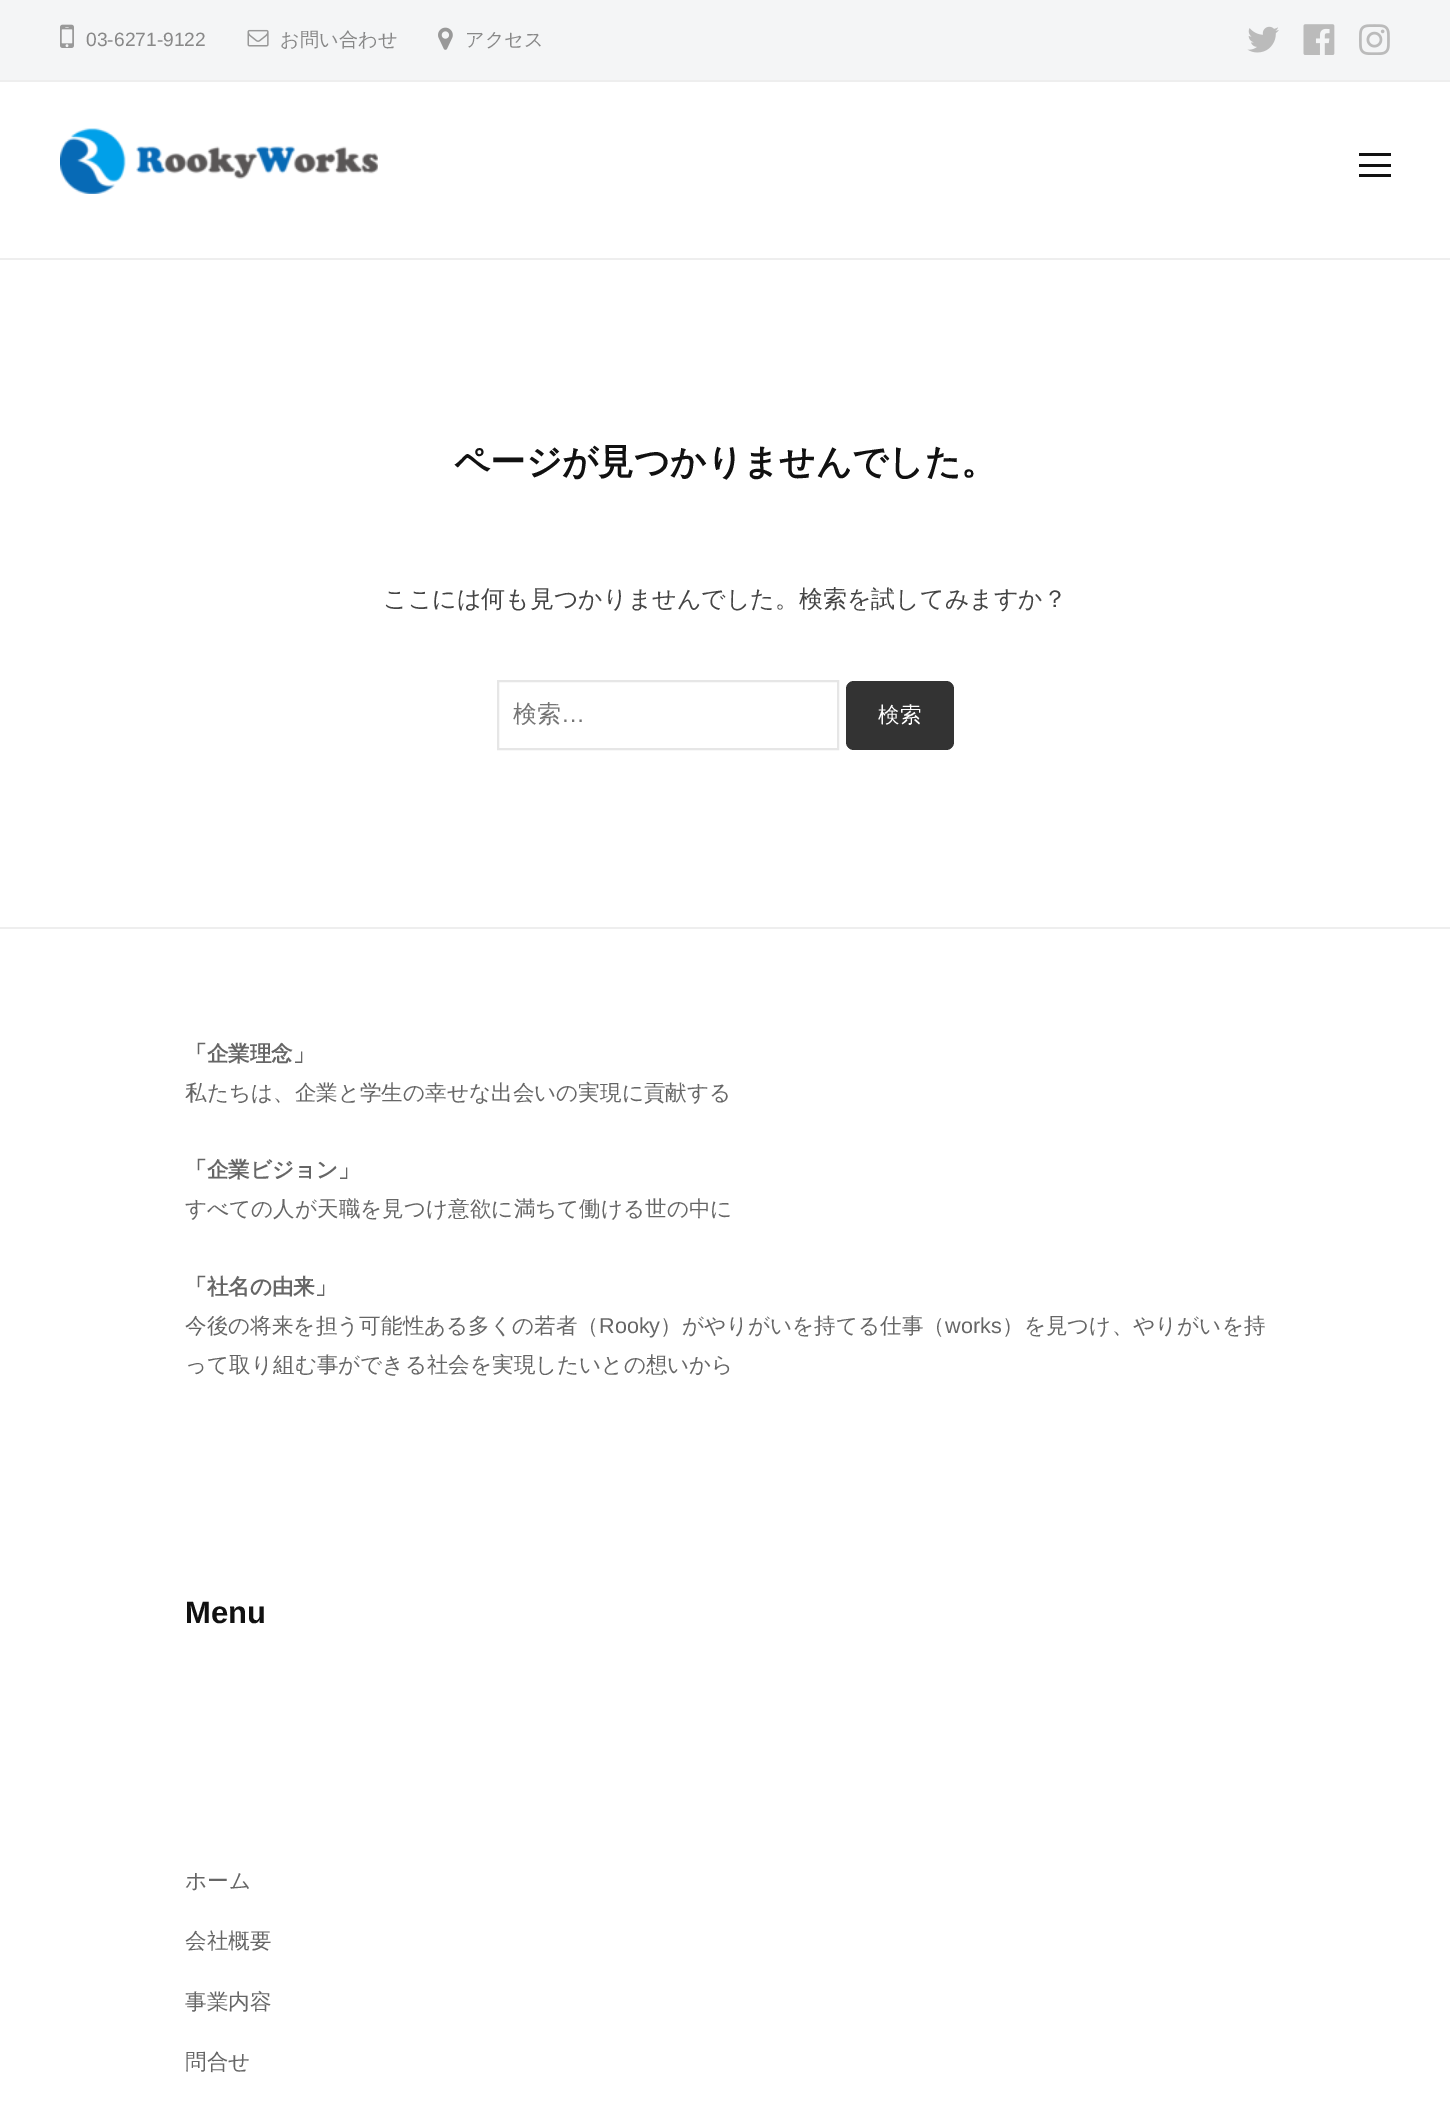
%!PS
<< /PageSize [1450 2111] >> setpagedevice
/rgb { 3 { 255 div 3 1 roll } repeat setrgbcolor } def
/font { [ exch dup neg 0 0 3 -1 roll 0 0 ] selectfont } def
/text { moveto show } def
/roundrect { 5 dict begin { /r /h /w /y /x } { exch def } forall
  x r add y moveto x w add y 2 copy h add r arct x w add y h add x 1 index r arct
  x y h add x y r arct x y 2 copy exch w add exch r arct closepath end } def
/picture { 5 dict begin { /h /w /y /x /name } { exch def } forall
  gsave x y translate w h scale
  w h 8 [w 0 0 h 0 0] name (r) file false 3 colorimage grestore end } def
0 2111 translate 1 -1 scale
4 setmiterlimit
255 255 255 rgb
0 0 1450 2111 rectfill
238 238 238 rgb
0 258 1450 2 rectfill
244 245 246 rgb
0 0 1450 80 rectfill
238 238 238 rgb
0 80 1450 2 rectfill
(img_01.rgb) 60 24 14 24 picture
(img_02.rgb) 247 29 22 18 picture
(img_03.rgb) 438 27 15 23 picture
(img_04.rgb) 1247 26 32 27 picture
(img_05.rgb) 1303 24 32 31 picture
(img_06.rgb) 1359 24 31 31 picture
(img_07.rgb) 60 128 318 66 picture
17 17 17 rgb
1359 164 32 3 rectfill
1359 153 32 3 rectfill
1359 174 32 3 rectfill
230 230 230 rgb
2 setlinewidth
498 681 340 68 rectstroke
51 51 51 rgb
846 681 108 69 8 roundrect fill
238 238 238 rgb
0 927 1450 2 rectfill
/LiberationSans-Regular 19.25 font
136 136 136 rgb
(03-6271-9122) 86 46 text
/WenQuanYiZenHei-Medium 19.25 font
(お問い合わせ) 280 46 text
(アクセス) 465 46 text
/WenQuanYiZenHei-Bold 35.5 font
17 17 17 rgb
(ページが見つかりませんでした。) 454 474 text
/WenQuanYiZenHei-Medium 24 font
68 68 68 rgb
(ここには何も見つかりませんでした。検索を試してみますか？) 383 607 text
117 117 117 rgb
(検索) 513 722 text
/LiberationSans-Regular 24 font
(…) 561 722 text
/WenQuanYiZenHei-Medium 21.6 font
255 255 255 rgb
(検索) 878 722 text
/WenQuanYiZenHei-Bold 21.6 font
102 102 102 rgb
(「企業理念」) 185 1061 text
/WenQuanYiZenHei-Medium 21.6 font
(私たちは、企業と学生の幸せな出会いの実現に貢献する) 185 1100 text
/WenQuanYiZenHei-Bold 21.6 font
(「企業ビジョン」) 185 1177 text
/WenQuanYiZenHei-Medium 21.6 font
(すべての人が天職を見つけ意欲に満ちて働ける世の中に) 185 1216 text
/WenQuanYiZenHei-Bold 21.6 font
(「社名の由来」) 185 1294 text
/WenQuanYiZenHei-Medium 21.6 font
(今後の将来を担う可能性ある多くの若者（) 185 1333 text
/LiberationSans-Regular 21.6 font
(Rooky) 599 1333 text
/WenQuanYiZenHei-Medium 21.6 font
(）がやりがいを持てる仕事（) 660 1333 text
/LiberationSans-Regular 21.6 font
(works) 945 1333 text
/WenQuanYiZenHei-Medium 21.6 font
(）を見つけ、やりがいを持) 1002 1333 text
(って取り組む事ができる社会を実現したいとの想いから) 185 1372 text
/LiberationSans-Bold 31 font
17 17 17 rgb
(Menu) 185 1623 text
/WenQuanYiZenHei-Medium 21.6 font
102 102 102 rgb
(ホーム) 185 1888 text
(会社概要) 185 1948 text
(事業内容) 185 2009 text
(問合せ) 185 2069 text
showpage
